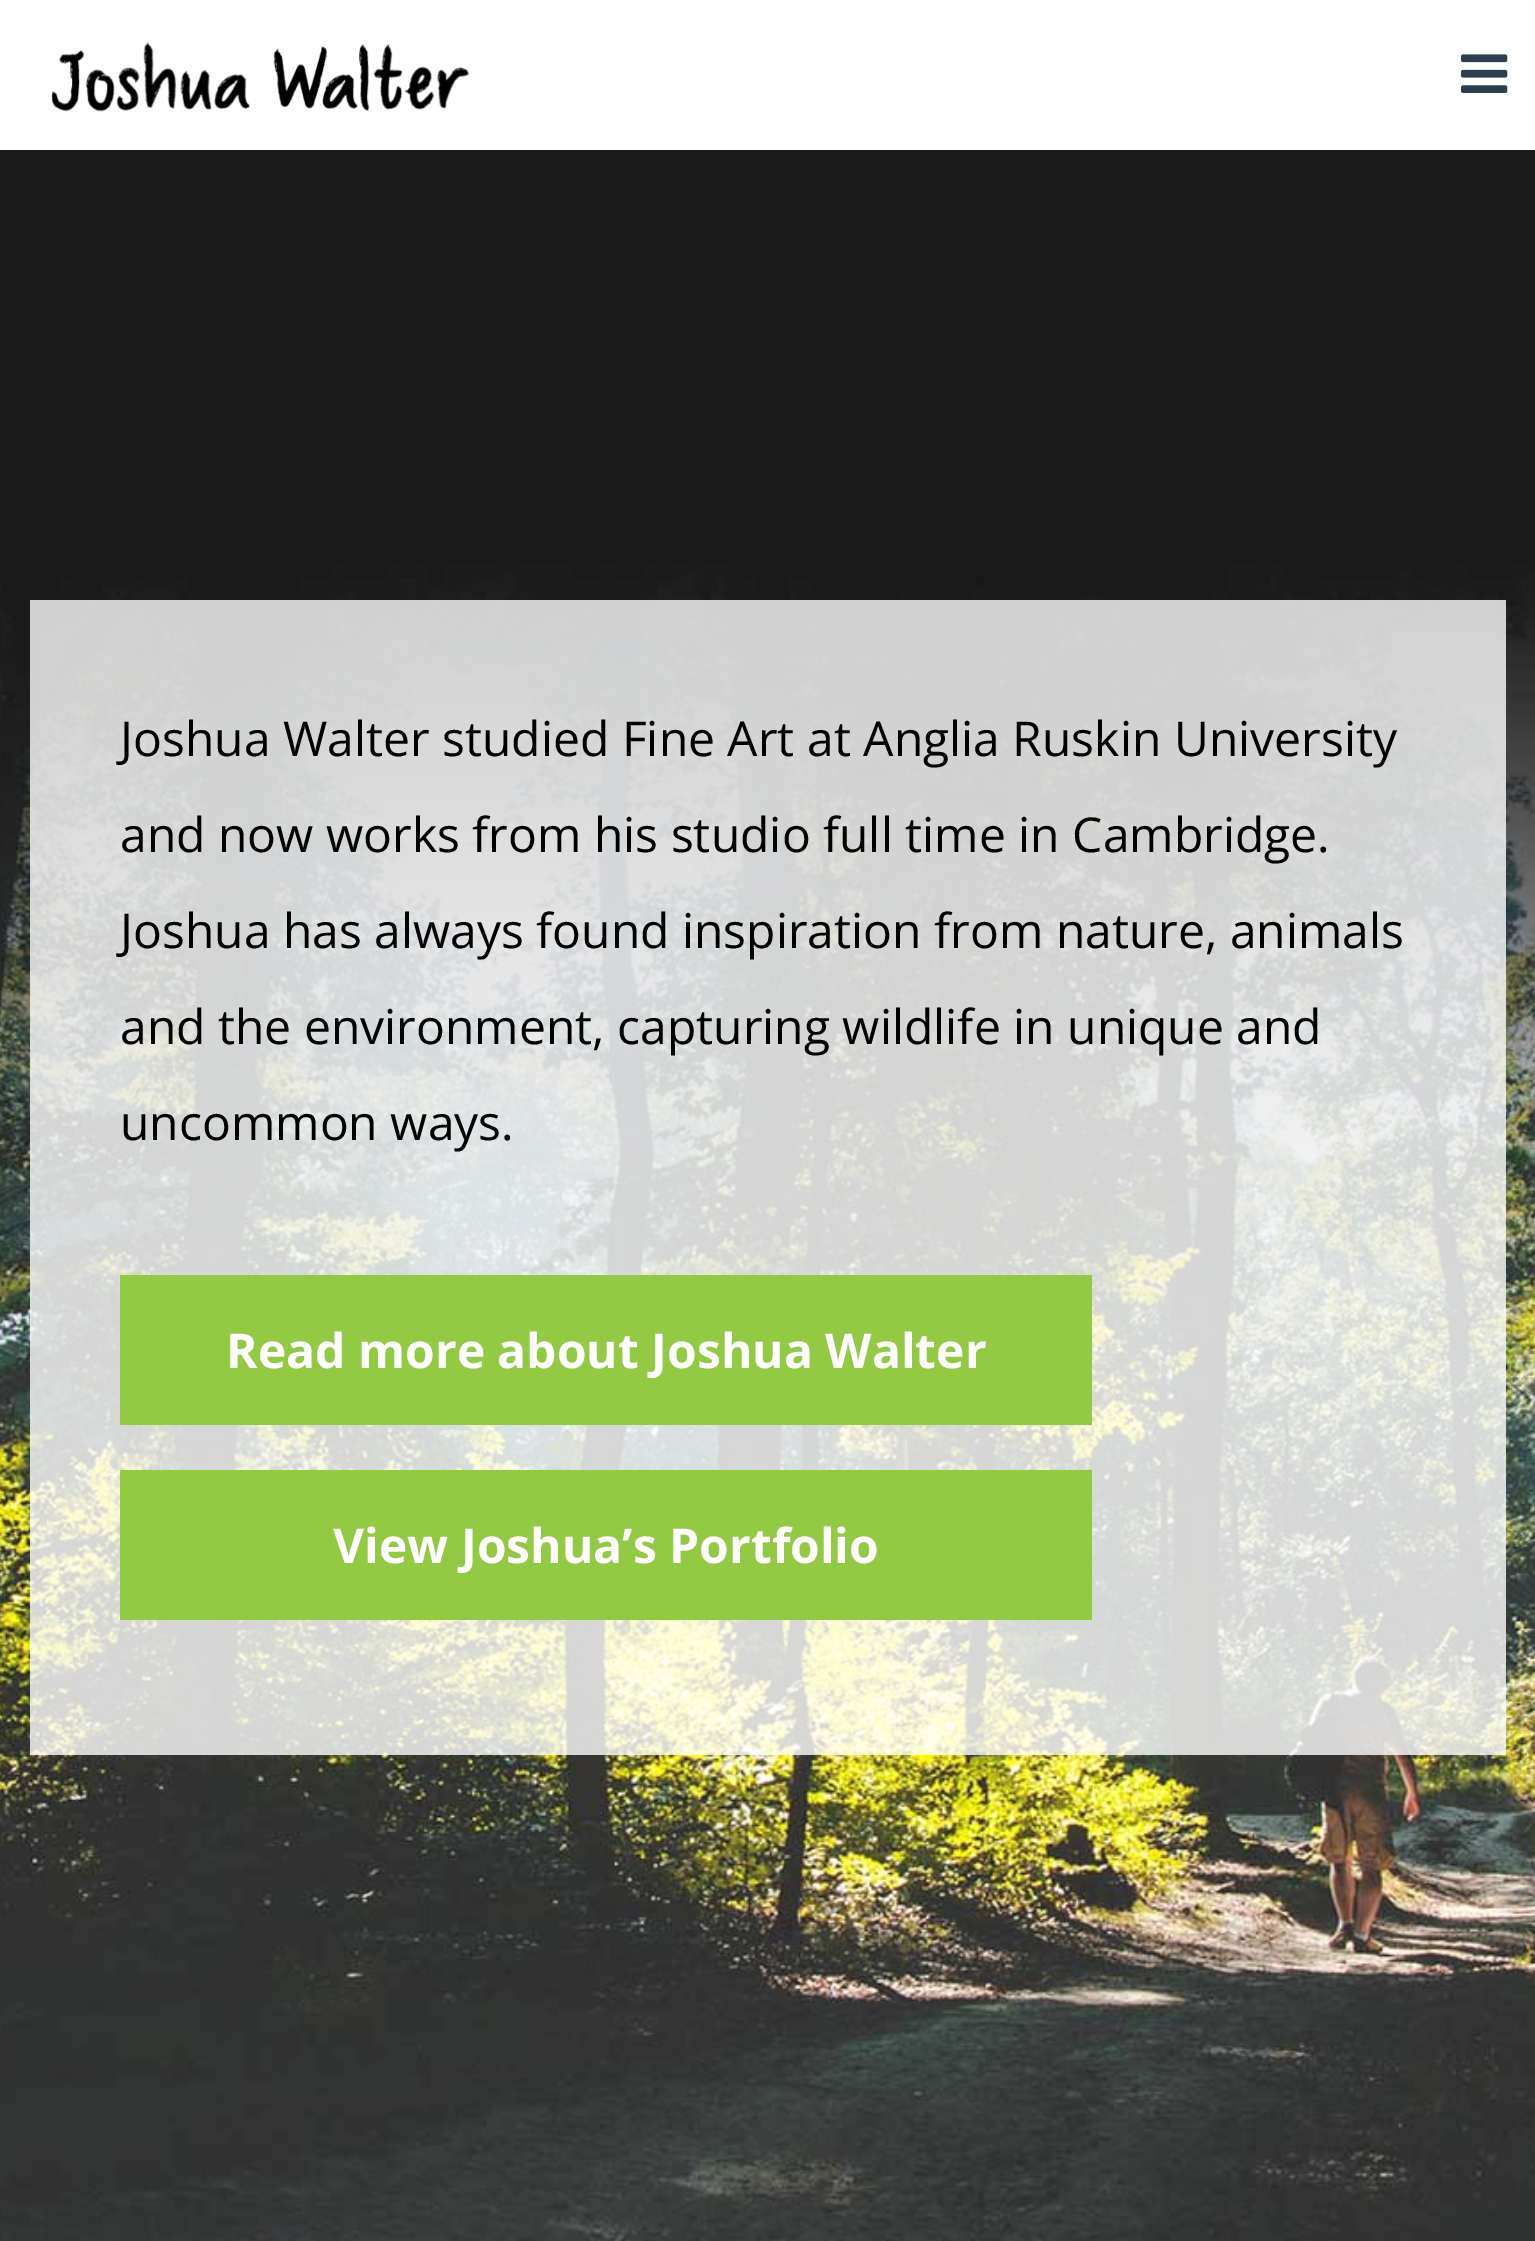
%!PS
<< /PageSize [1535 2241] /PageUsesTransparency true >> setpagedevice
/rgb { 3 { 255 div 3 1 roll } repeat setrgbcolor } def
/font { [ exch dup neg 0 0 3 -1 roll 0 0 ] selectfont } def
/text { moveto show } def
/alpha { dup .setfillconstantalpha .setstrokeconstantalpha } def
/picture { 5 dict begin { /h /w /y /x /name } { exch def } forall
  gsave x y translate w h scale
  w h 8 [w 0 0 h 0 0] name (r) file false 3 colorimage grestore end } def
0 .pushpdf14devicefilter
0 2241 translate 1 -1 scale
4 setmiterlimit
255 255 255 rgb
0 0 1535 2241 rectfill
(img_01.rgb) 51 42 419 70 picture
(img_02.rgb) 1461 54 47 39 picture
(img_03.rgb) 0 150 1535 2091 picture
0.8 alpha
30 600 1476 1155 rectfill
1 alpha
147 202 68 rgb
120 1275 972 150 rectfill
120 1470 972 150 rectfill
/OpenSans-Regular 48 font
0 0 0 rgb
(Joshua Walter studied Fine Art at Anglia Ruskin University) 120 756 text
(and now works from his studio full time in Cambridge.) 120 852 text
(Joshua has always found inspiration from nature, animals) 120 948 text
(and the environment, capturing wildlife in unique and) 120 1044 text
(uncommon ways.) 120 1140 text
/OpenSans-Bold 48 font
255 255 255 rgb
(Read more about Joshua Walter) 226 1368 text
(View Joshua’s Portfolio) 333 1563 text
.poppdf14devicefilter showpage
